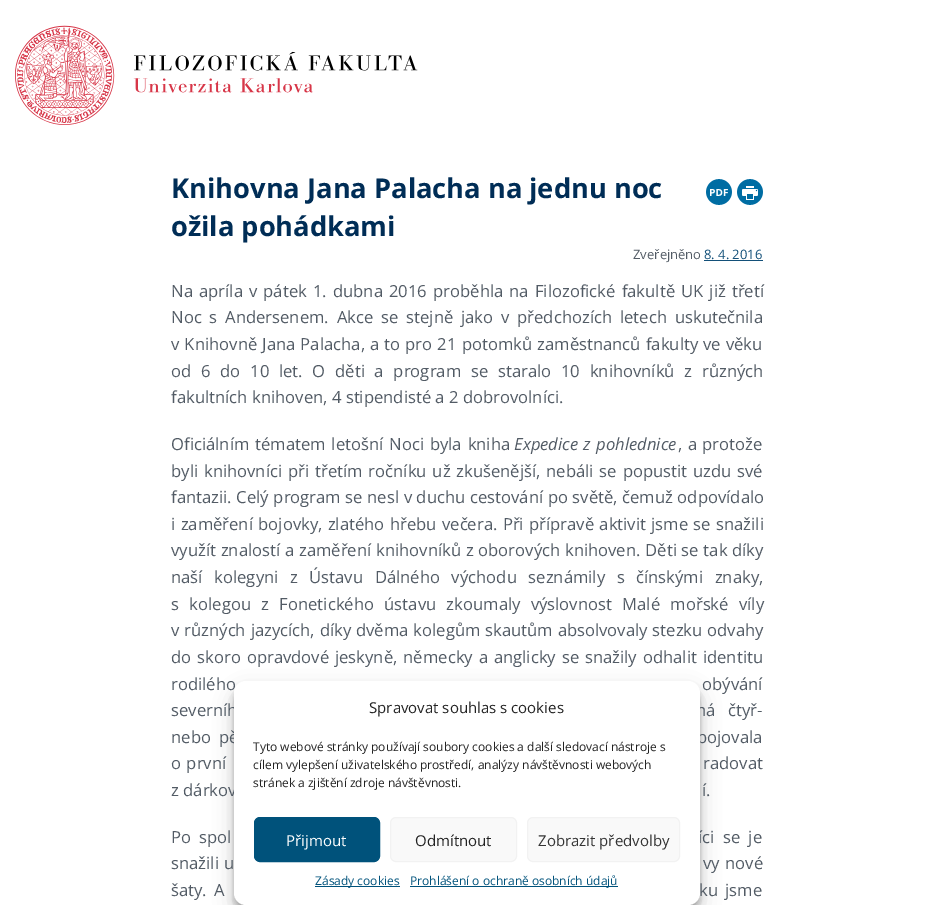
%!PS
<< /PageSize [933 905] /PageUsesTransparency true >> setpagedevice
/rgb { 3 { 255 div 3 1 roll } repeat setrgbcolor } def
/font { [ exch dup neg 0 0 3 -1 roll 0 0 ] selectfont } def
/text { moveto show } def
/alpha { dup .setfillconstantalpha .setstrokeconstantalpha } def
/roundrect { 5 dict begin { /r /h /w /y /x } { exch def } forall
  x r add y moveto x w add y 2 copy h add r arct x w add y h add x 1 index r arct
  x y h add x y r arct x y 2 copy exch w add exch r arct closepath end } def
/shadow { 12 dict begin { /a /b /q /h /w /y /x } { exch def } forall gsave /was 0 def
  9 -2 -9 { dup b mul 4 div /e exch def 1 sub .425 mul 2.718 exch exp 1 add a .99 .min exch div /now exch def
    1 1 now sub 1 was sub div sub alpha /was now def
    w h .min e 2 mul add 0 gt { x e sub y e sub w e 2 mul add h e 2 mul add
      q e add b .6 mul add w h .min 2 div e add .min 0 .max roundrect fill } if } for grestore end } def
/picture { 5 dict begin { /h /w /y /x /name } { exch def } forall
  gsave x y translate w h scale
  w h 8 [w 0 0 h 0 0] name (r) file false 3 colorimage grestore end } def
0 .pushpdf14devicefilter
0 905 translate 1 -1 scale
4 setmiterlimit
255 255 255 rgb
0 0 933 905 rectfill
(img_01.rgb) 15 25 403 100 picture
(img_02.rgb) 706 179 26 26 picture
(img_03.rgb) 737 179 26 26 picture
19 80 121 rgb
704 260 59 1 rectfill
0 0 0 rgb
234 687 466 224 12 3 0.23 shadow
234 691 466 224 12 10 0.19 shadow
/OpenSans-Bold 27.25 font
0 45 86 rgb
(Knihovna Jana Palacha na jednu noc) 171 198 text
(ožila pohádkami) 171 236 text
/OpenSans-Regular 13 font
82 91 101 rgb
(Zveřejněno) 633 259 text
19 80 121 rgb
(8. 4. 2016) 704 259 text
/OpenSans-Regular 16.65 font
82 91 101 rgb
171 297 moveto 1.75 0 32 (Na apríla v pátek 1. dubna 2016 proběhla na Filozofické fakultě UK již třetí) widthshow
171 323 moveto 3.5 0 32 (Noc s Andersenem. Akce se stejně jako v předchozích letech uskutečnila) widthshow
171 350 moveto 0.75 0 32 (v Knihovně Jana Palacha, a to pro 21 potomků zaměstnanců fakulty ve věku) widthshow
171 377 moveto 5.4 0 32 (od 6 do 10 let. O děti a program se staralo 10 knihovníků z různých) widthshow
(fakultních knihoven, 4 stipendisté a 2 dobrovolníci.) 171 403 text
171 450 moveto 1.5 0 32 (Oficiálním tématem letošní Noci byla kniha) widthshow
/OpenSans-Italic 16.65 font
514 450 moveto 1 0 32 (Expedice z pohlednice) widthshow
/OpenSans-Regular 16.65 font
678 450 moveto 1 0 32 (, a protože) widthshow
171 477 moveto 1.5 0 32 (byli knihovníci při třetím ročníku už zkušenější, nebáli se popustit uzdu své) widthshow
171 503 moveto 0.25 0 32 (fantazii. Celý program se nesl v duchu cestování po světě, čemuž odpovídalo) widthshow
171 530 moveto 1 0 32 (i zaměření bojovky, zlatého hřebu večera. Při přípravě aktivit jsme se snažili) widthshow
171 556 moveto 0.4 0 32 (využít znalostí a zaměření knihovníků z oborových knihoven. Děti se tak díky) widthshow
171 583 moveto 7.25 0 32 (naší kolegyni z Ústavu Dálného východu seznámily s čínskými znaky,) widthshow
171 610 moveto 6 0 32 (s kolegou z Fonetického ústavu zkoumaly výslovnost Malé mořské víly) widthshow
171 636 moveto 0.5 0 32 (v různých jazycích, díky dvěma kolegům skautům absolvovaly stezku odvahy) widthshow
171 663 moveto 1.6 0 32 (do skoro opravdové jeskyně, německy a anglicky se snažily odhalit identitu) widthshow
171 690 moveto 7 0 32 (rodilého) widthshow
702 690 moveto 7 0 32 (obývání) widthshow
171 716 moveto 8 0 32 (severníh) widthshow
696 716 moveto 8 0 32 (ná čtyř-) widthshow
171 743 moveto 4 0 32 (nebo pě) widthshow
697 743 moveto 4 0 32 (bojovala) widthshow
171 769 moveto 1 0 32 (o první) widthshow
703 769 moveto 1 0 32 (radovat) widthshow
(z dárkov) 171 796 text
(í.) 702 796 text
171 843 moveto 4 0 32 (Po spol) widthshow
698 843 moveto 4 0 32 (íci se je) widthshow
171 869 moveto 1 0 32 (snažili u) widthshow
703 869 moveto 1 0 32 (vy nové) widthshow
171 896 moveto 3 0 32 (šaty. A) widthshow
699 896 moveto 3 0 32 (ku jsme) widthshow
255 255 255 rgb
234 681 466 224 12 roundrect fill
/OpenSans-Regular 15 font
34 34 34 rgb
(Spravovat souhlas s cookies) 369 713 text
/OpenSans-Regular 12 font
(Tyto webové stránky používají soubory cookies a další sledovací nástroje s) 253 751 text
(cílem vylepšení uživatelského prostředí, analýzy návštěvnosti webových) 253 769 text
(stránek a zjištění zdroje návštěvnosti.) 253 787 text
0 82 123 rgb
254.5 817.5 125 44 5.5 roundrect gsave fill grestore
stroke
/OpenSans-Regular 15 font
255 255 255 rgb
(Přijmout) 286 846 text
249 249 249 rgb
390.5 817.5 126 44 5.5 roundrect gsave fill grestore
242 242 242 rgb
stroke
34 34 34 rgb
(Odmítnout) 415 846 text
249 249 249 rgb
527.5 817.5 152 44 5.5 roundrect gsave fill grestore
242 242 242 rgb
stroke
51 51 51 rgb
(Zobrazit předvolby) 538 846 text
0 82 123 rgb
315 886 85 1 rectfill
/OpenSans-Regular 12 font
(Zásady cookies) 315 885 text
410 886 208 1 rectfill
(Prohlášení o ochraně osobních údajů) 410 885 text
.poppdf14devicefilter showpage
